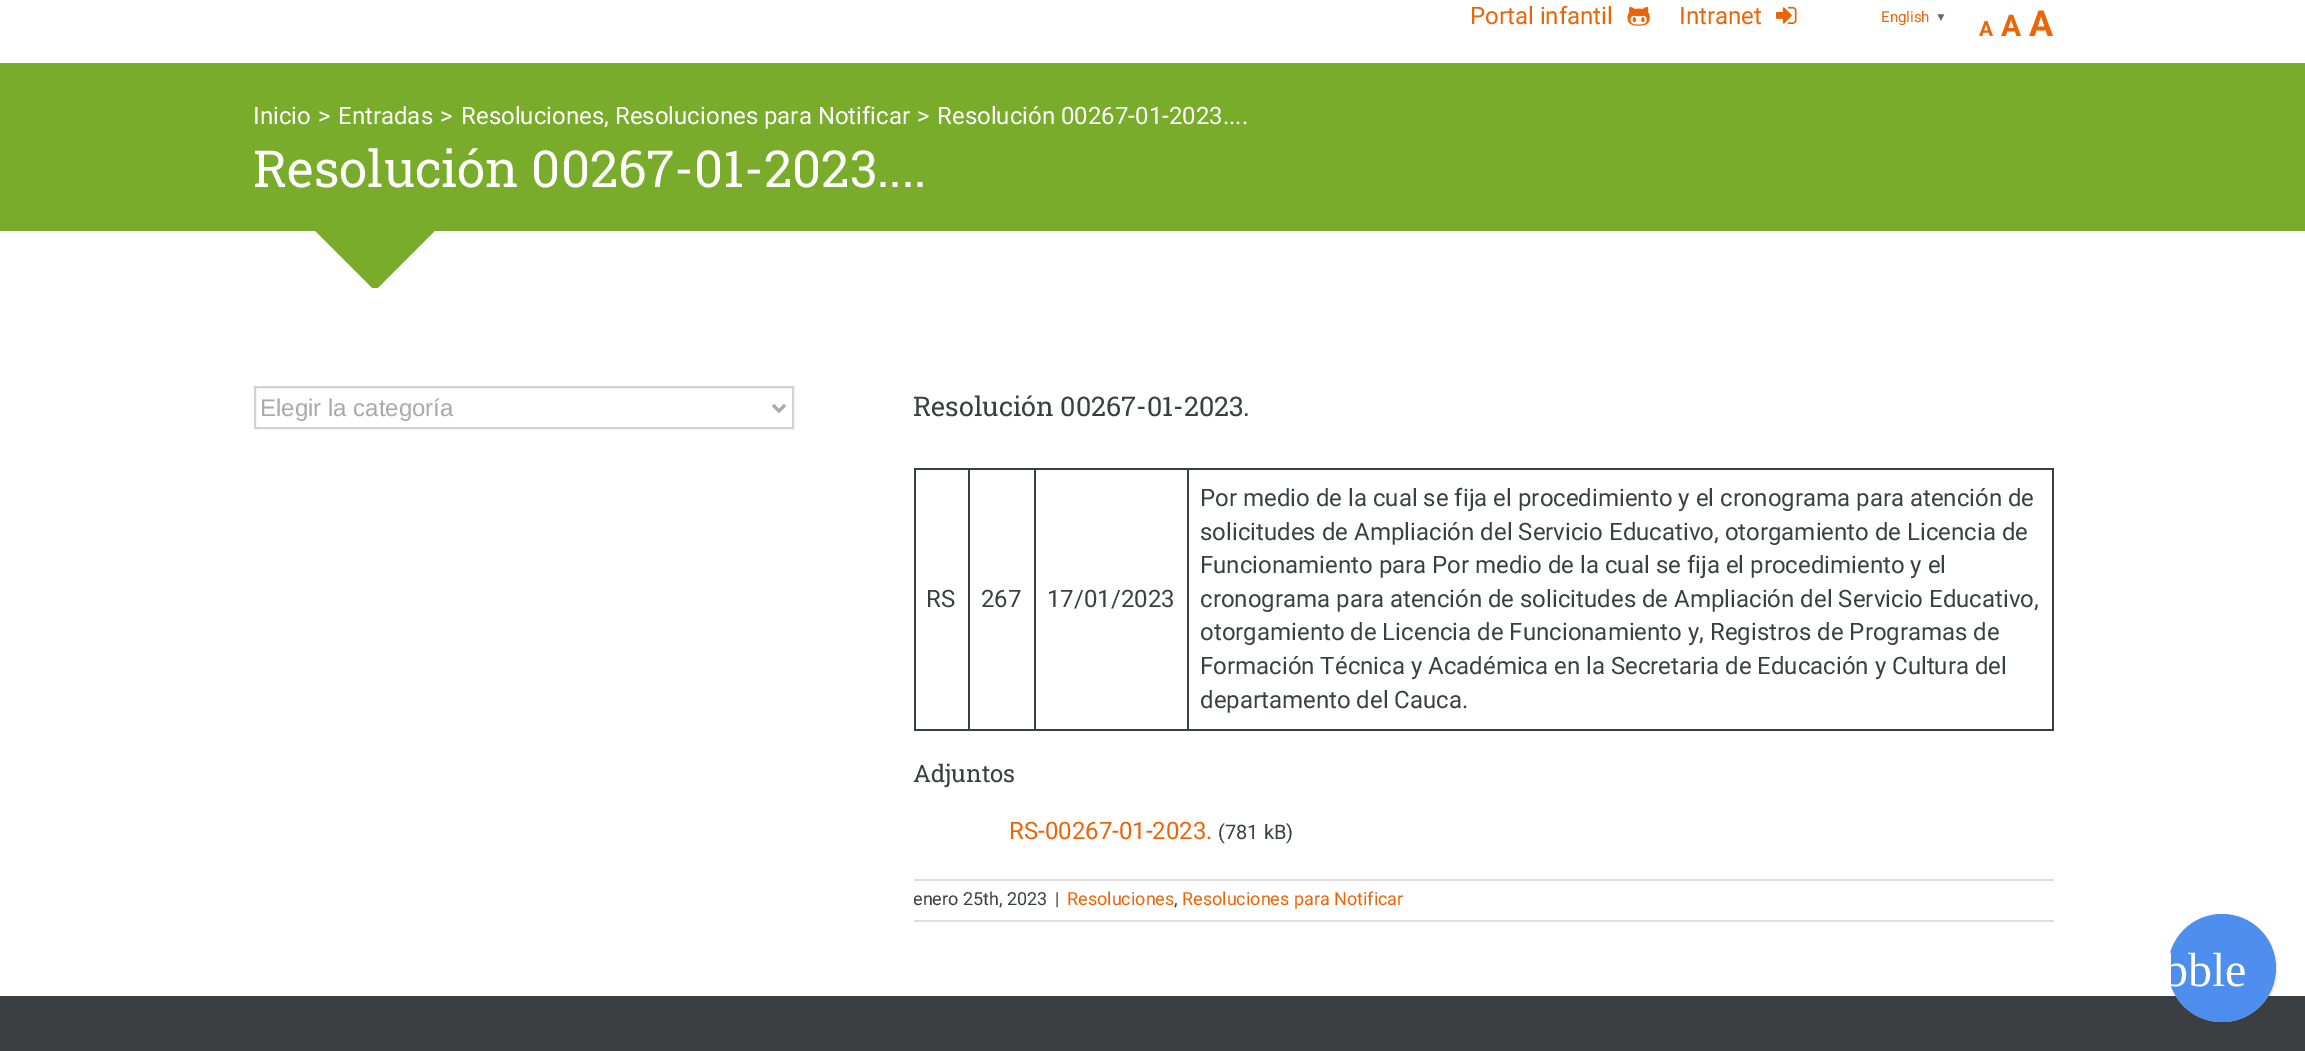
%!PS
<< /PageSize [2305 1051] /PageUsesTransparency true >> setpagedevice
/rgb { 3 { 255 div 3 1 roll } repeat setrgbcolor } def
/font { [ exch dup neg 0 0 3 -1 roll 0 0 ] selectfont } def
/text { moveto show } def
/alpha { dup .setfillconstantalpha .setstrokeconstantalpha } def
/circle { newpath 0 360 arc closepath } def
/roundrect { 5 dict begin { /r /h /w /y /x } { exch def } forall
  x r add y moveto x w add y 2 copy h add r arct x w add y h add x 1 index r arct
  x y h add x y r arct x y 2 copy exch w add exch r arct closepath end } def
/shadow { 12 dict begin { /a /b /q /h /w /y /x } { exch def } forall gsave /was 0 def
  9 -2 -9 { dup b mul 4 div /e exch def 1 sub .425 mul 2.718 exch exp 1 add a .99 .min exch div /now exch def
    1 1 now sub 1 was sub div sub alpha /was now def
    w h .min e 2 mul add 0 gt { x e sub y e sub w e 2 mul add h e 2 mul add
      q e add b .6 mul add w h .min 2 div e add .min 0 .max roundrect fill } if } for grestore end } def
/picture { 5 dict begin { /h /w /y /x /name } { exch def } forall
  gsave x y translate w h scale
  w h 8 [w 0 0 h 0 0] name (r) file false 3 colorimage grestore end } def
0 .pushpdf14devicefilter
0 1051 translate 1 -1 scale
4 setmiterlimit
255 255 255 rgb
0 0 2305 1051 rectfill
(img_01.rgb) 1627 6 23 20 picture
(img_02.rgb) 1776 6 21 18 picture
121 172 43 rgb
0 63 2305 225 rectfill
255 255 255 rgb
0 231 315 57 rectfill
315 291 moveto 0 -60 rlineto 60 60 rlineto closepath fill
435 231 1870 57 rectfill
435 231 moveto 0 60 rlineto -60 0 rlineto closepath fill
210 210 210 rgb
2 setlinewidth
255 387 538 41 rectstroke
170 169 169 rgb
3 setlinewidth
773 405 moveto 6 6 rlineto 6 -6 rlineto stroke
59 63 66 rgb
1187 468 867 2 rectfill
2052 468 2 263 rectfill
1187 729 867 2 rectfill
1187 468 2 263 rectfill
1034 468 154 2 rectfill
1034 729 154 2 rectfill
1034 468 2 263 rectfill
968 468 67 2 rectfill
968 729 67 2 rectfill
968 468 2 263 rectfill
914 468 55 2 rectfill
914 729 55 2 rectfill
914 468 2 263 rectfill
224 222 222 rgb
914 879 1140 2 rectfill
914 920 1140 2 rectfill
59 63 66 rgb
0 996 2305 55 rectfill
0.95 alpha
250 250 250 rgb
2222 968 54 circle fill
gsave
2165 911 moveto 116 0 rlineto 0 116 rlineto -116 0 rlineto closepath 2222 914 moveto 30 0 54 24 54 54 rcurveto 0 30 -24 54 -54 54 rcurveto -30 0 -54 -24 -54 -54 rcurveto 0 -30 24 -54 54 -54 rcurveto closepath eoclip newpath
1 alpha
0 0 0 rgb
2169 915 108 108 54 1 0.1 shadow
grestore
68 136 238 rgb
2222 968 54 circle fill
/Roboto-Regular 24 font
1 alpha
235 100 8 rgb
(Portal infantil) 1470 24 text
(Intranet) 1679 24 text
/Roboto-Regular 15 font
(English) 1881 22 text
/LiberationSans-Bold 12 font
102 102 102 rgb
(▼) 1935 21 text
/Roboto-Bold 21 font
235 100 8 rgb
(A) 1979 36 text
/Roboto-Bold 30 font
(A) 2001 36 text
/Roboto-Bold 36 font
(A) 2029 36 text
/Roboto-Regular 24 font
255 255 255 rgb
(Inicio) 253 124 text
(>) 318 124 text
(Entradas) 338 124 text
(>) 440 124 text
(Resoluciones, Resoluciones para Notificar) 461 124 text
(>) 917 124 text
(Resolución 00267-01-2023....) 937 124 text
/RobotoSlab-Regular 51 font
(Resolución 00267-01-2023....) 253 187 text
/LiberationSans-Regular 24 font
170 169 169 rgb
(Elegir la categoría) 260 416 text
/RobotoSlab-Regular 27 font
59 63 66 rgb
(Resolución 00267-01-2023.) 913 416 text
/Roboto-Regular 24 font
(RS) 926 607 text
(267) 981 607 text
(17/01/2023) 1047 607 text
(Por medio de la cual se fija el procedimiento y el cronograma para atención de) 1200 506 text
(solicitudes de Ampliación del Servicio Educativo, otorgamiento de Licencia de) 1200 540 text
(Funcionamiento para Por medio de la cual se fija el procedimiento y el) 1200 573 text
(cronograma para atención de solicitudes de Ampliación del Servicio Educativo,) 1200 607 text
(otorgamiento de Licencia de Funcionamiento y, Registros de Programas de) 1200 640 text
(Formación Técnica y Académica en la Secretaria de Educación y Cultura del) 1200 674 text
(departamento del Cauca.) 1200 708 text
/RobotoSlab-Regular 24 font
(Adjuntos) 913 782 text
/Roboto-Regular 24 font
235 100 8 rgb
(RS-00267-01-2023.) 1009 839 text
/Roboto-Regular 20 font
59 63 66 rgb
(\(781 kB\)) 1218 839 text
gsave
914 881 1140 39 rectclip
/Roboto-Regular 18 font
(enero 25th, 2023) 913 905 text
grestore
/Roboto-Regular 18 font
(|) 1055 905 text
235 100 8 rgb
(Resoluciones) 1067 905 text
59 63 66 rgb
(,) 1174 905 text
235 100 8 rgb
(Resoluciones para Notificar) 1182 905 text
/LiberationSerif-Regular 48 font
255 255 255 rgb
(bble) 2164 986 text
.poppdf14devicefilter showpage
